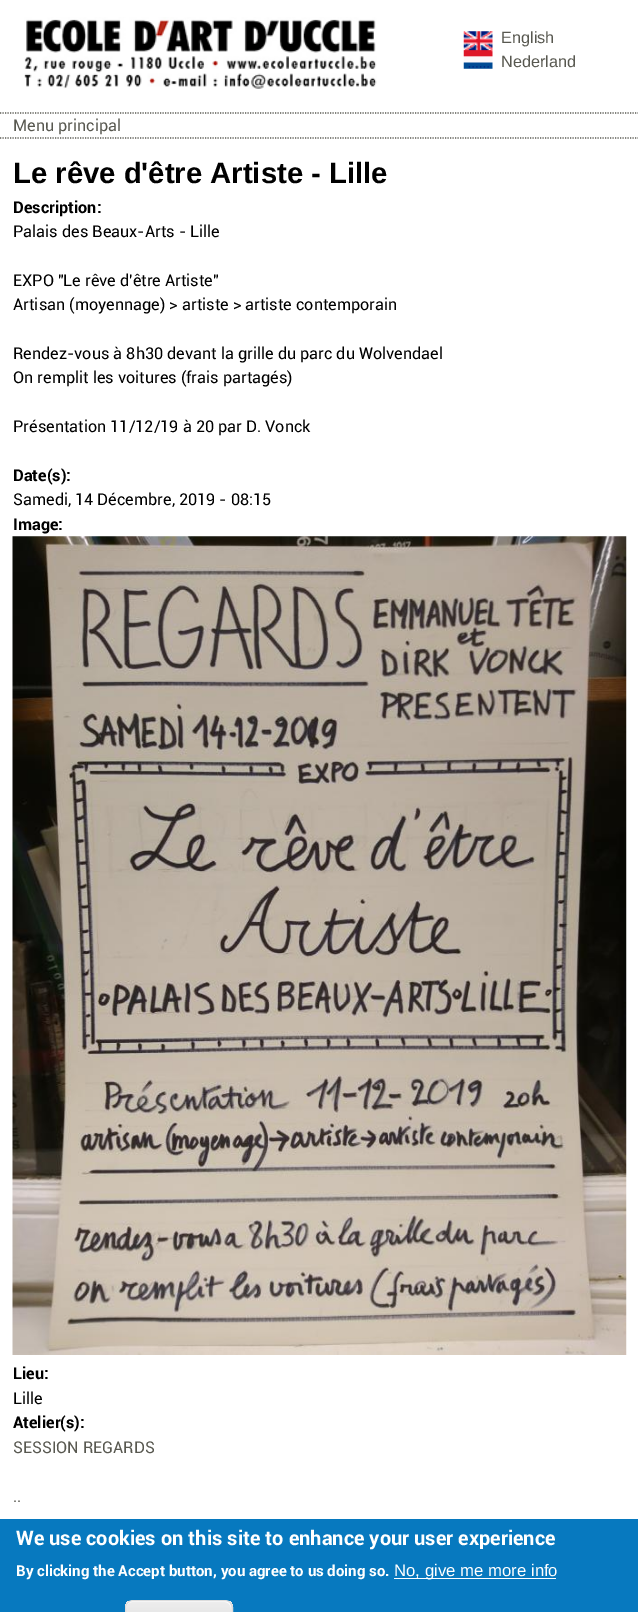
%!PS
<< /PageSize [638 1612] >> setpagedevice
/rgb { 3 { 255 div 3 1 roll } repeat setrgbcolor } def
/font { [ exch dup neg 0 0 3 -1 roll 0 0 ] selectfont } def
/text { moveto show } def
/roundrect { 5 dict begin { /r /h /w /y /x } { exch def } forall
  x r add y moveto x w add y 2 copy h add r arct x w add y h add x 1 index r arct
  x y h add x y r arct x y 2 copy exch w add exch r arct closepath end } def
/picture { 5 dict begin { /h /w /y /x /name } { exch def } forall
  gsave x y translate w h scale
  w h 8 [w 0 0 h 0 0] name (r) file false 3 colorimage grestore end } def
0 1612 translate 1 -1 scale
4 setmiterlimit
255 255 255 rgb
0 0 638 1612 rectfill
(img_01.rgb) 24 17 353 72 picture
88 88 80 rgb
1.2 setlinewidth
[1.25 1.25] 0 setdash
0 113 moveto 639 0 rlineto stroke
(img_02.rgb) 463 31 30 38 picture
0 138 moveto 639 0 rlineto stroke
(img_03.rgb) 12 536 615 819 picture
7 121 191 rgb
0 1519 638 93 rectfill
255 255 255 rgb
394 1578 162 1 rectfill
gsave
125 1600 108 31 8 roundrect clip newpath
gsave 125 1601 moveto 108 0 rlineto 0 11 rlineto -108 0 rlineto closepath clip newpath
<< /ShadingType 2 /ColorSpace /DeviceRGB /Coords [179 1601 179 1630] /Extend [true true] /Function << /FunctionType 3 /Domain [0 1] /Functions [<< /FunctionType 2 /Domain [0 1] /C0 [0.929 0.929 0.929] /C1 [0.929 0.929 0.929] /N 1 >> << /FunctionType 2 /Domain [0 1] /C0 [0.929 0.929 0.929] /C1 [0.875 0.875 0.875] /N 1 >>] /Bounds [0.05] /Encode [0 1 0 1] >> >> shfill grestore
grestore
132 1602 moveto 93 0 rlineto 3 0 6 3 6 7 rcurveto 0 -12 -12 -8 -21 -8 rcurveto -62 0 rlineto -10 0 -22 -4 -22 8 rcurveto 0 -4 3 -7 6 -7 rcurveto closepath fill
220 220 220 rgb
1 setlinewidth
[] 0 setdash
125.5 1600.5 107 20 7.5 roundrect stroke
/LiberationSans-Regular 16.25 font
88 88 80 rgb
(English) 501 43 text
(Nederland) 501 67 text
/Roboto-Regular 16.25 font
(Menu principal) 13 131 text
/LiberationSans-Bold 29.25 font
0 0 0 rgb
(Le rêve d'être Artiste - Lille) 13 183 text
/Roboto-Bold 16.25 font
(Description:) 13 213 text
/Roboto-Regular 16.25 font
(Palais des Beaux-Arts - Lille) 13 237 text
(EXPO "Le rêve d'être Artiste") 13 286 text
(Artisan \(moyennage\) > artiste > artiste contemporain) 13 310 text
(Rendez-vous à 8h30 devant la grille du parc du Wolvendael) 13 359 text
(On remplit les voitures \(frais partagés\)) 13 383 text
(Présentation 11/12/19 à 20 par D. Vonck) 13 432 text
/Roboto-Bold 16.25 font
(Date\(s\):) 13 481 text
/Roboto-Regular 16.25 font
(Samedi, 14 Décembre, 2019 - 08:15) 13 505 text
/Roboto-Bold 16.25 font
(Image:) 13 530 text
(Lieu:) 13 1379 text
/Roboto-Regular 16.25 font
(Lille) 13 1404 text
/Roboto-Bold 16.25 font
(Atelier\(s\):) 13 1428 text
/Roboto-Regular 16.25 font
88 88 80 rgb
(SESSION REGARDS) 13 1453 text
(..) 13 1502 text
/Roboto-Bold 20 font
255 255 255 rgb
(We use cookies on this site to enhance your user experience) 16 1545 text
/Roboto-Bold 15 font
(By clicking the Accept button, you agree to us doing so.) 16 1576 text
/LiberationSans-Regular 16.75 font
(No, give me more info) 394 1576 text
showpage
